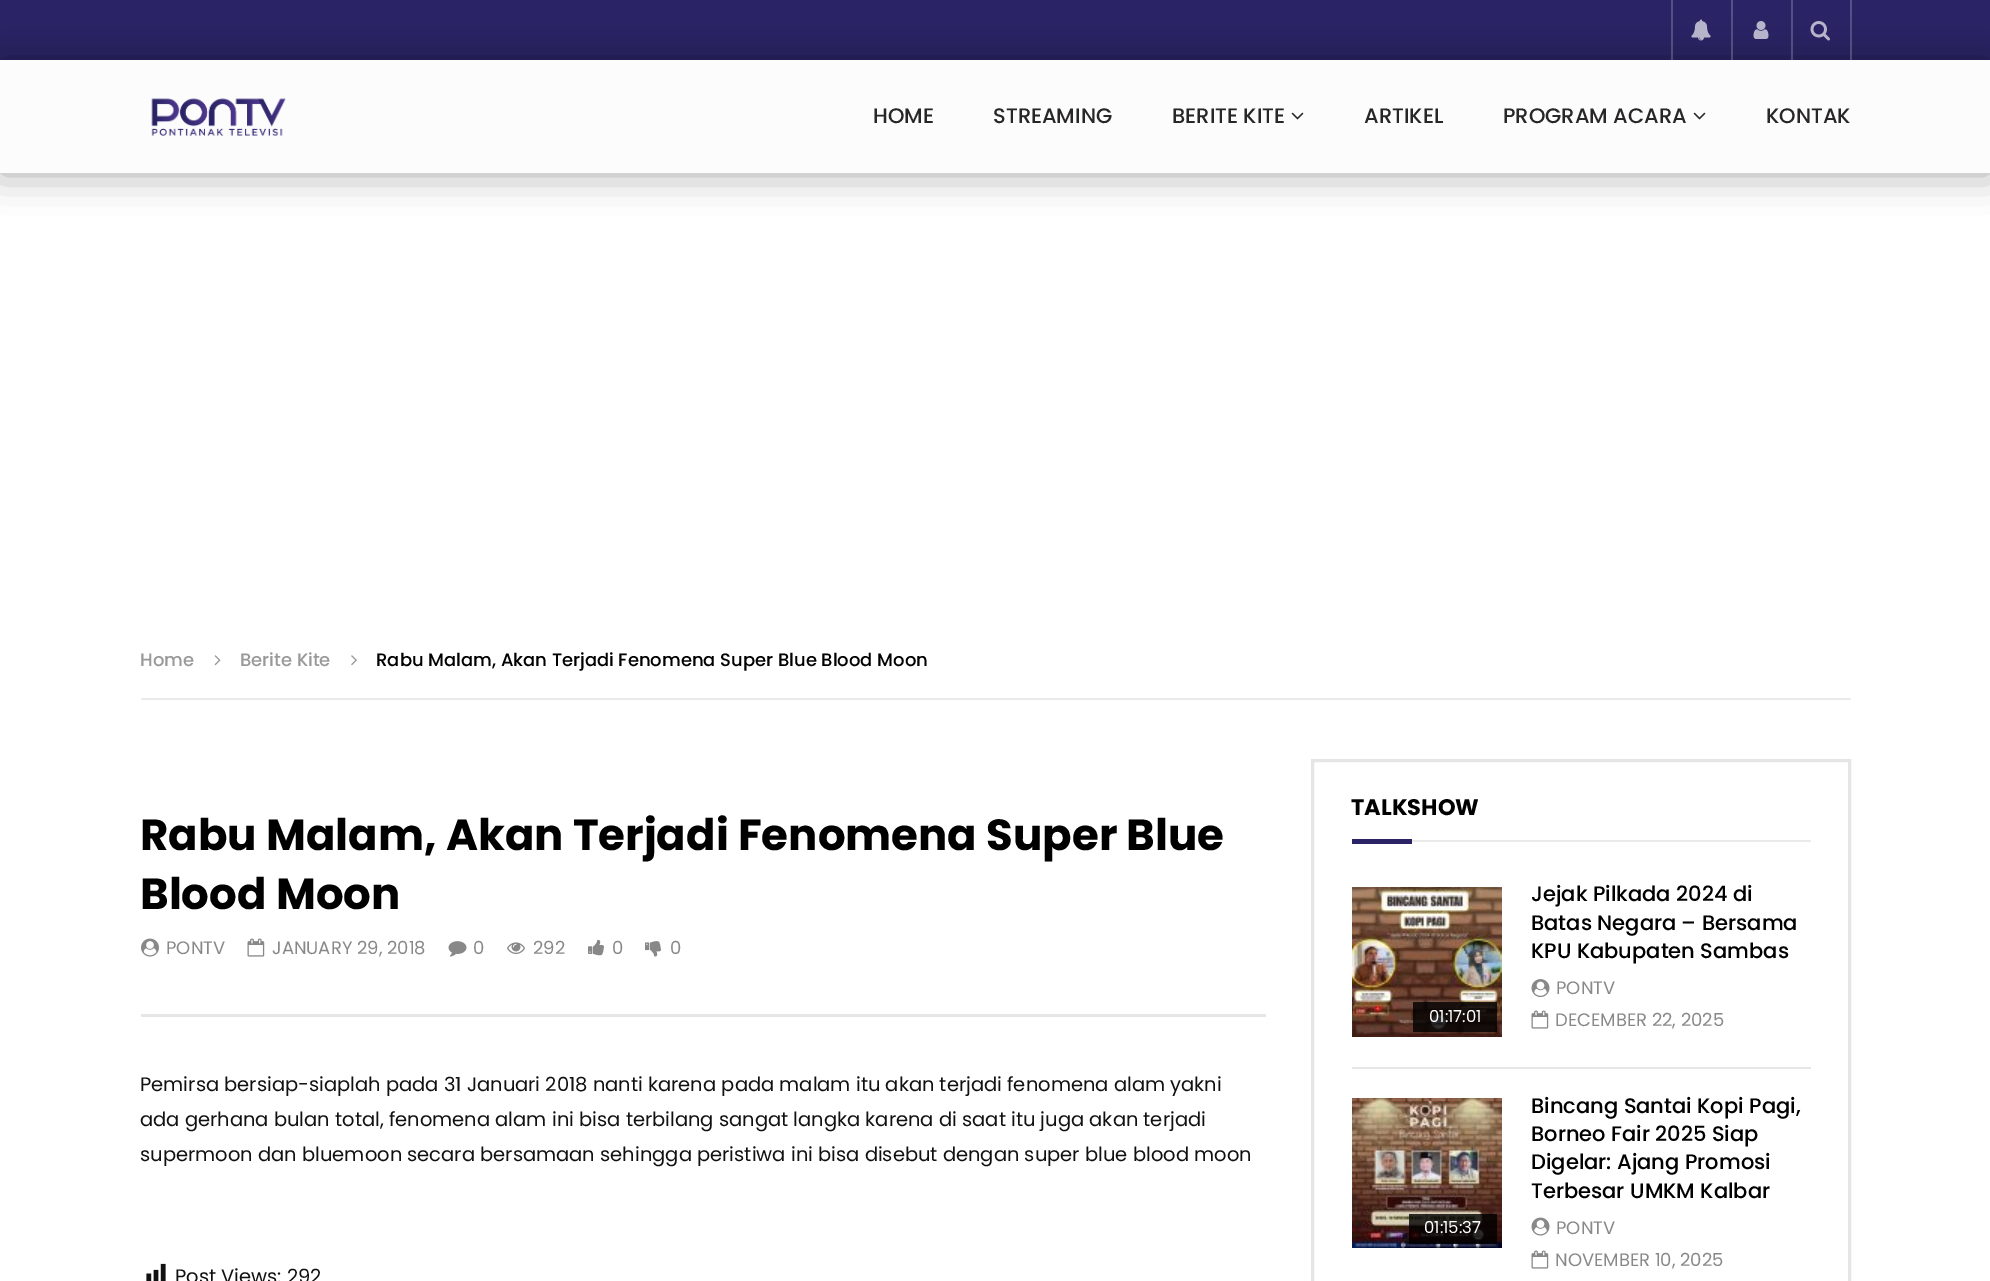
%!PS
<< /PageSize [1990 1281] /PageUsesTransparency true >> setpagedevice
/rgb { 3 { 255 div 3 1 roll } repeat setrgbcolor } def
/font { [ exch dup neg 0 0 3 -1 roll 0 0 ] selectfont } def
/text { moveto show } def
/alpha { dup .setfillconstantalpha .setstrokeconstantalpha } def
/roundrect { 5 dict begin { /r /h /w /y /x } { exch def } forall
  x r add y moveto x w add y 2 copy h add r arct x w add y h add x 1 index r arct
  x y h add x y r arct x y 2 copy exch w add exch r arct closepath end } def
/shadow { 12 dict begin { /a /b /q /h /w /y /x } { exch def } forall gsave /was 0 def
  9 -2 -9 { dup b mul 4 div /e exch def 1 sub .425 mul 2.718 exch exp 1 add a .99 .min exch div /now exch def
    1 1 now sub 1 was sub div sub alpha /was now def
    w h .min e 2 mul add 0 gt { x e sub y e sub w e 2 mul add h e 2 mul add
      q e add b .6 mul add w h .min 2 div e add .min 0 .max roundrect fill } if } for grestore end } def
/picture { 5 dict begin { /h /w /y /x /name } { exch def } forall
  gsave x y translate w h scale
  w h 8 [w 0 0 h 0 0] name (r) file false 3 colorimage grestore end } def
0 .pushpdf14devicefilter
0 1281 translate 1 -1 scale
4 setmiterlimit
255 255 255 rgb
0 0 1990 1281 rectfill
42 36 102 rgb
0 0 1990 60 rectfill
0 0 0 rgb
0 60 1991 113 0 19 0.35 shadow
0.2 alpha
255 255 255 rgb
1671 0 2 60 rectfill
1 alpha
(img_01.rgb) 1691 19 20 22 picture
0.2 alpha
1731 0 2 60 rectfill
1 alpha
(img_02.rgb) 1753 21 16 18 picture
0.2 alpha
1850 0 2 60 rectfill
1791 0 2 60 rectfill
1 alpha
(img_03.rgb) 1810 21 20 20 picture
252 252 252 rgb
0 60 1990 113 rectfill
(img_04.rgb) 151 98 135 38 picture
(img_05.rgb) 1291 112 13 8 picture
(img_05.rgb) 1693 112 13 8 picture
234 234 234 rgb
141 698 1710 2 rectfill
(img_06.rgb) 214 655 7 11 picture
(img_07.rgb) 351 655 6 11 picture
230 230 230 rgb
141 1014 1125 3 rectfill
(img_08.rgb) 141 938 18 19 picture
(img_09.rgb) 247 938 18 19 picture
(img_10.rgb) 448 941 19 16 picture
(img_11.rgb) 507 942 18 12 picture
(img_12.rgb) 588 939 16 17 picture
(img_13.rgb) 645 941 16 16 picture
(img_14.rgb) 146 1263 20 18 picture
229 229 229 rgb
3 setlinewidth
1312.5 760.5 537 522 rectstroke
42 36 102 rgb
1352 839 60 5 rectfill
234 234 234 rgb
1412 840 399 2 rectfill
230 230 230 rgb
1352 1067 459 2 rectfill
(img_15.rgb) 1352 887 150 150 picture
0.8 alpha
0 0 0 rgb
1413 1002 84 30 rectfill
1 alpha
(img_16.rgb) 1531 979 19 19 picture
(img_09.rgb) 1531 1010 18 19 picture
(img_17.rgb) 1352 1098 150 150 picture
0.8 alpha
1409 1214 88 30 rectfill
1 alpha
(img_18.rgb) 1531 1217 19 19 picture
(img_09.rgb) 1531 1250 18 19 picture
/Poppins-Medium 21 font
40 38 38 rgb
(HOME) 873 123 text
(STREAMING) 993 123 text
(BERITE KITE) 1172 123 text
(ARTIKEL) 1364 123 text
(PROGRAM ACARA) 1503 123 text
(KONTAK) 1766 123 text
/Poppins-Medium 18 font
153 153 153 rgb
(Home) 140 666 text
(Berite Kite) 240 666 text
0 0 0 rgb
(Rabu Malam, Akan Terjadi Fenomena Super Blue Blood Moon) 376 666 text
/Poppins-Bold 43.5 font
(Rabu Malam, Akan Terjadi Fenomena Super Blue) 140 850 text
(Blood Moon) 140 909 text
/Poppins-Regular 18 font
136 136 136 rgb
(PONTV) 166 954 text
(JANUARY 29, 2018) 272 954 text
(0) 473 954 text
(292) 533 954 text
(0) 612 954 text
(0) 670 954 text
/Poppins-Regular 19.5 font
17 17 17 rgb
(Pemirsa bersiap-siaplah pada 31 Januari 2018 nanti karena pada malam itu akan terjadi fenomena alam yakni) 140 1091 text
(ada gerhana bulan total, fenomena alam ini bisa terbilang sangat langka karena di saat itu juga akan terjadi) 140 1126 text
(supermoon dan bluemoon secara bersamaan sehingga peristiwa ini bisa disebut dengan super blue blood moon) 140 1161 text
(Post Views: 292) 175 1283 text
/Poppins-Bold 22.5 font
0 0 0 rgb
(TALKSHOW) 1351 815 text
/Poppins-Regular 16.5 font
255 255 255 rgb
(01:17:01) 1429 1022 text
/Poppins-Medium 21 font
0 0 0 rgb
(Jejak Pilkada 2024 di) 1531 901 text
(Batas Negara – Bersama) 1531 930 text
(KPU Kabupaten Sambas) 1531 958 text
/Poppins-Regular 18 font
136 136 136 rgb
(PONTV) 1556 994 text
(DECEMBER 22, 2025) 1555 1026 text
/Poppins-Regular 16.5 font
255 255 255 rgb
(01:15:37) 1424 1233 text
/Poppins-Medium 21 font
0 0 0 rgb
(Bincang Santai Kopi Pagi,) 1531 1113 text
(Borneo Fair 2025 Siap) 1531 1141 text
(Digelar: Ajang Promosi) 1531 1169 text
(Terbesar UMKM Kalbar) 1531 1198 text
/Poppins-Regular 18 font
136 136 136 rgb
(PONTV) 1556 1234 text
(NOVEMBER 10, 2025) 1555 1266 text
.poppdf14devicefilter showpage
